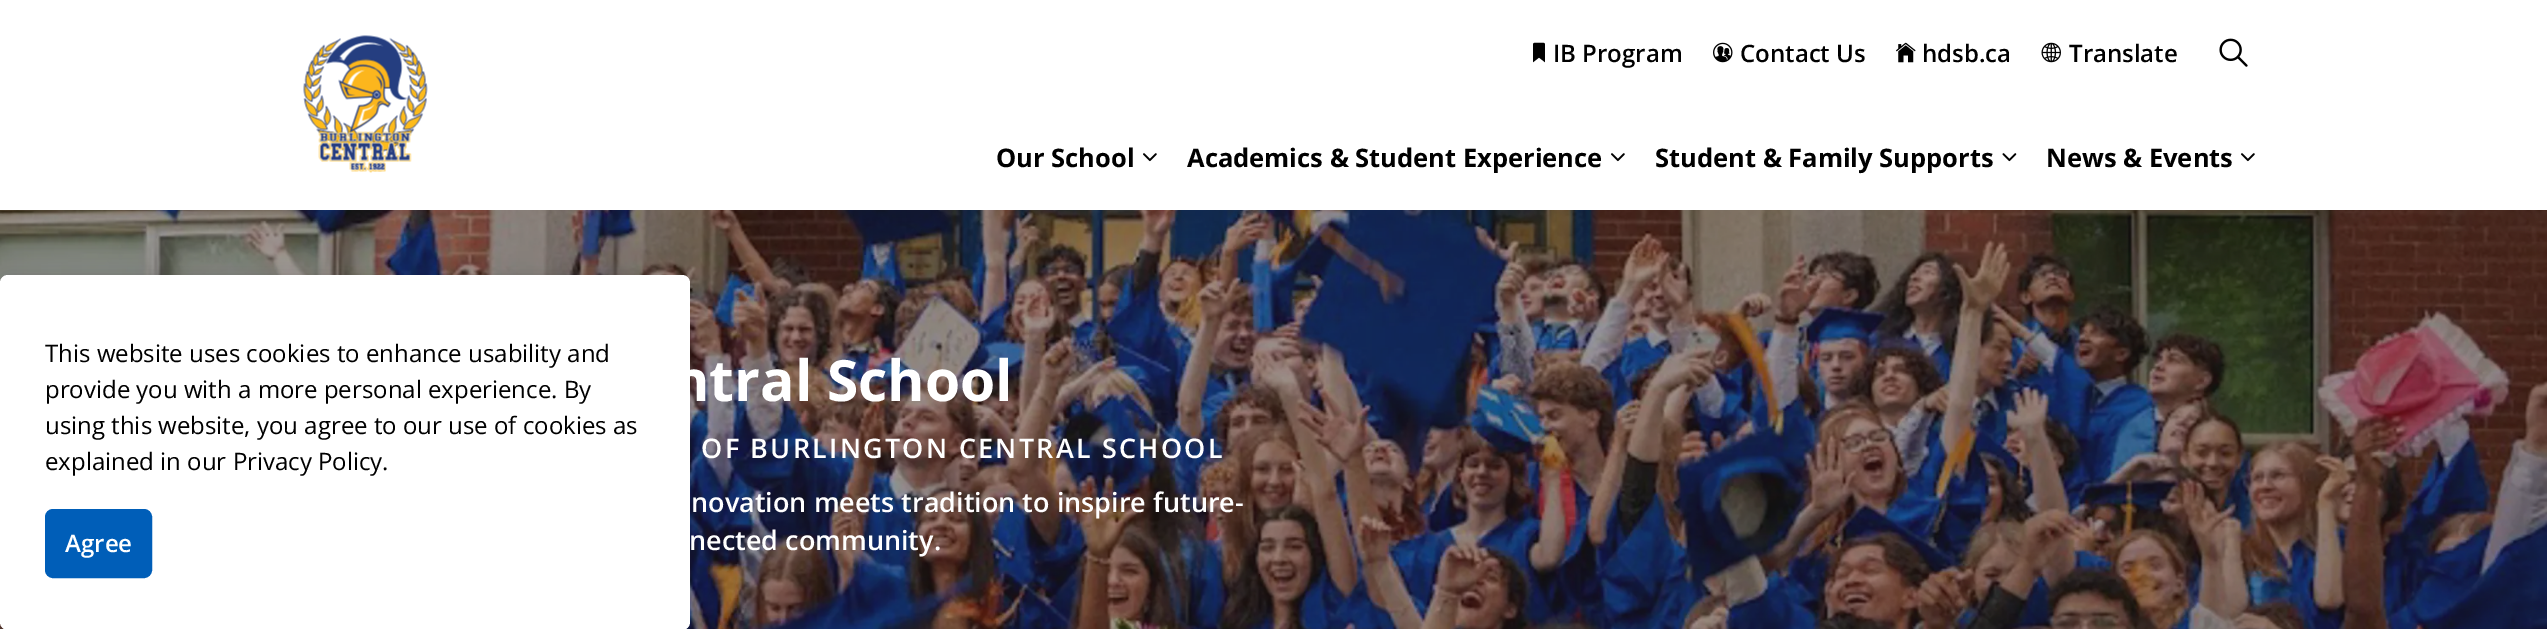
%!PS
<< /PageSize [2547 629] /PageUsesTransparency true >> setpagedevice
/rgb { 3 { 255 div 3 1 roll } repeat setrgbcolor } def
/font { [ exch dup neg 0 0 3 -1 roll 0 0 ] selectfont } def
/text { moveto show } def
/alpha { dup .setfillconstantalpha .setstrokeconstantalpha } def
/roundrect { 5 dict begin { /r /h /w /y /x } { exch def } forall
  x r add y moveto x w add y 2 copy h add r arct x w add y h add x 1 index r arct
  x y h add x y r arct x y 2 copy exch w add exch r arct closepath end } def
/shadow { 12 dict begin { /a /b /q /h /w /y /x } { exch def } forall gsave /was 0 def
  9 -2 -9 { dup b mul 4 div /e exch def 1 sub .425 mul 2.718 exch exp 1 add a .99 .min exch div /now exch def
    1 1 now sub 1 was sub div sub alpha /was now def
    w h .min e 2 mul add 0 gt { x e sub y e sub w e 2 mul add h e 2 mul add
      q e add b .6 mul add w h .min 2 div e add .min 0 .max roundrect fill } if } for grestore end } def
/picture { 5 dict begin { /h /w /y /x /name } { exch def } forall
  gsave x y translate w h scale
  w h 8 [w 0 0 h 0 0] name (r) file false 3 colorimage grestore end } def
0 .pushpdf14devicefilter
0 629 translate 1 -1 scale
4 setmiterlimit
255 255 255 rgb
0 0 2547 629 rectfill
(img_09.rgb) 0 210 2547 419 picture
0 0 0 rgb
0 275 690 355 8 7.5 0.1 shadow
255 255 255 rgb
0 275 690 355 8 roundrect fill
0 94 184 rgb
46 510 105 67 7 roundrect gsave fill grestore
2 setlinewidth
stroke
(img_01.rgb) 303 35 125 138 picture
(img_02.rgb) 1533 42 12 21 picture
(img_03.rgb) 1713 42 20 21 picture
(img_04.rgb) 1896 42 20 21 picture
(img_05.rgb) 2041 42 20 21 picture
(img_06.rgb) 2219 38 29 29 picture
(img_07.rgb) 1143 153 14 9 picture
(img_07.rgb) 1611 153 14 9 picture
(img_08.rgb) 2002 153 15 9 picture
(img_07.rgb) 2241 153 14 9 picture
/OpenSans-Regular 24 font
0 0 0 rgb
(This website uses cookies to enhance usability and) 45 362 text
(provide you with a more personal experience. By) 45 398 text
(using this website, you agree to our use of cookies as) 45 434 text
(explained in our Privacy Policy.) 45 470 text
/OpenSans-SemiBold 24 font
255 255 255 rgb
(Agree) 65 552 text
0 0 0 rgb
(IB Program) 1553 62 text
(Contact Us) 1740 62 text
(hdsb.ca) 1922 62 text
(Translate) 2069 62 text
/OpenSans-Bold 25.5 font
(Our School) 996 167 text
(Academics & Student Experience) 1187 167 text
(Student & Family Supports) 1655 167 text
(News & Events) 2046 167 text
/OpenSans-Bold 57 font
255 255 255 rgb
(ntral School) 672 401 text
/OpenSans-SemiBold 27 font
701 458 moveto 2.25 0 (OF BURLINGTON CENTRAL SCHOOL) ashow
(novation meets tradition to inspire future-) 691 512 text
(nected community.) 689 550 text
.poppdf14devicefilter showpage
